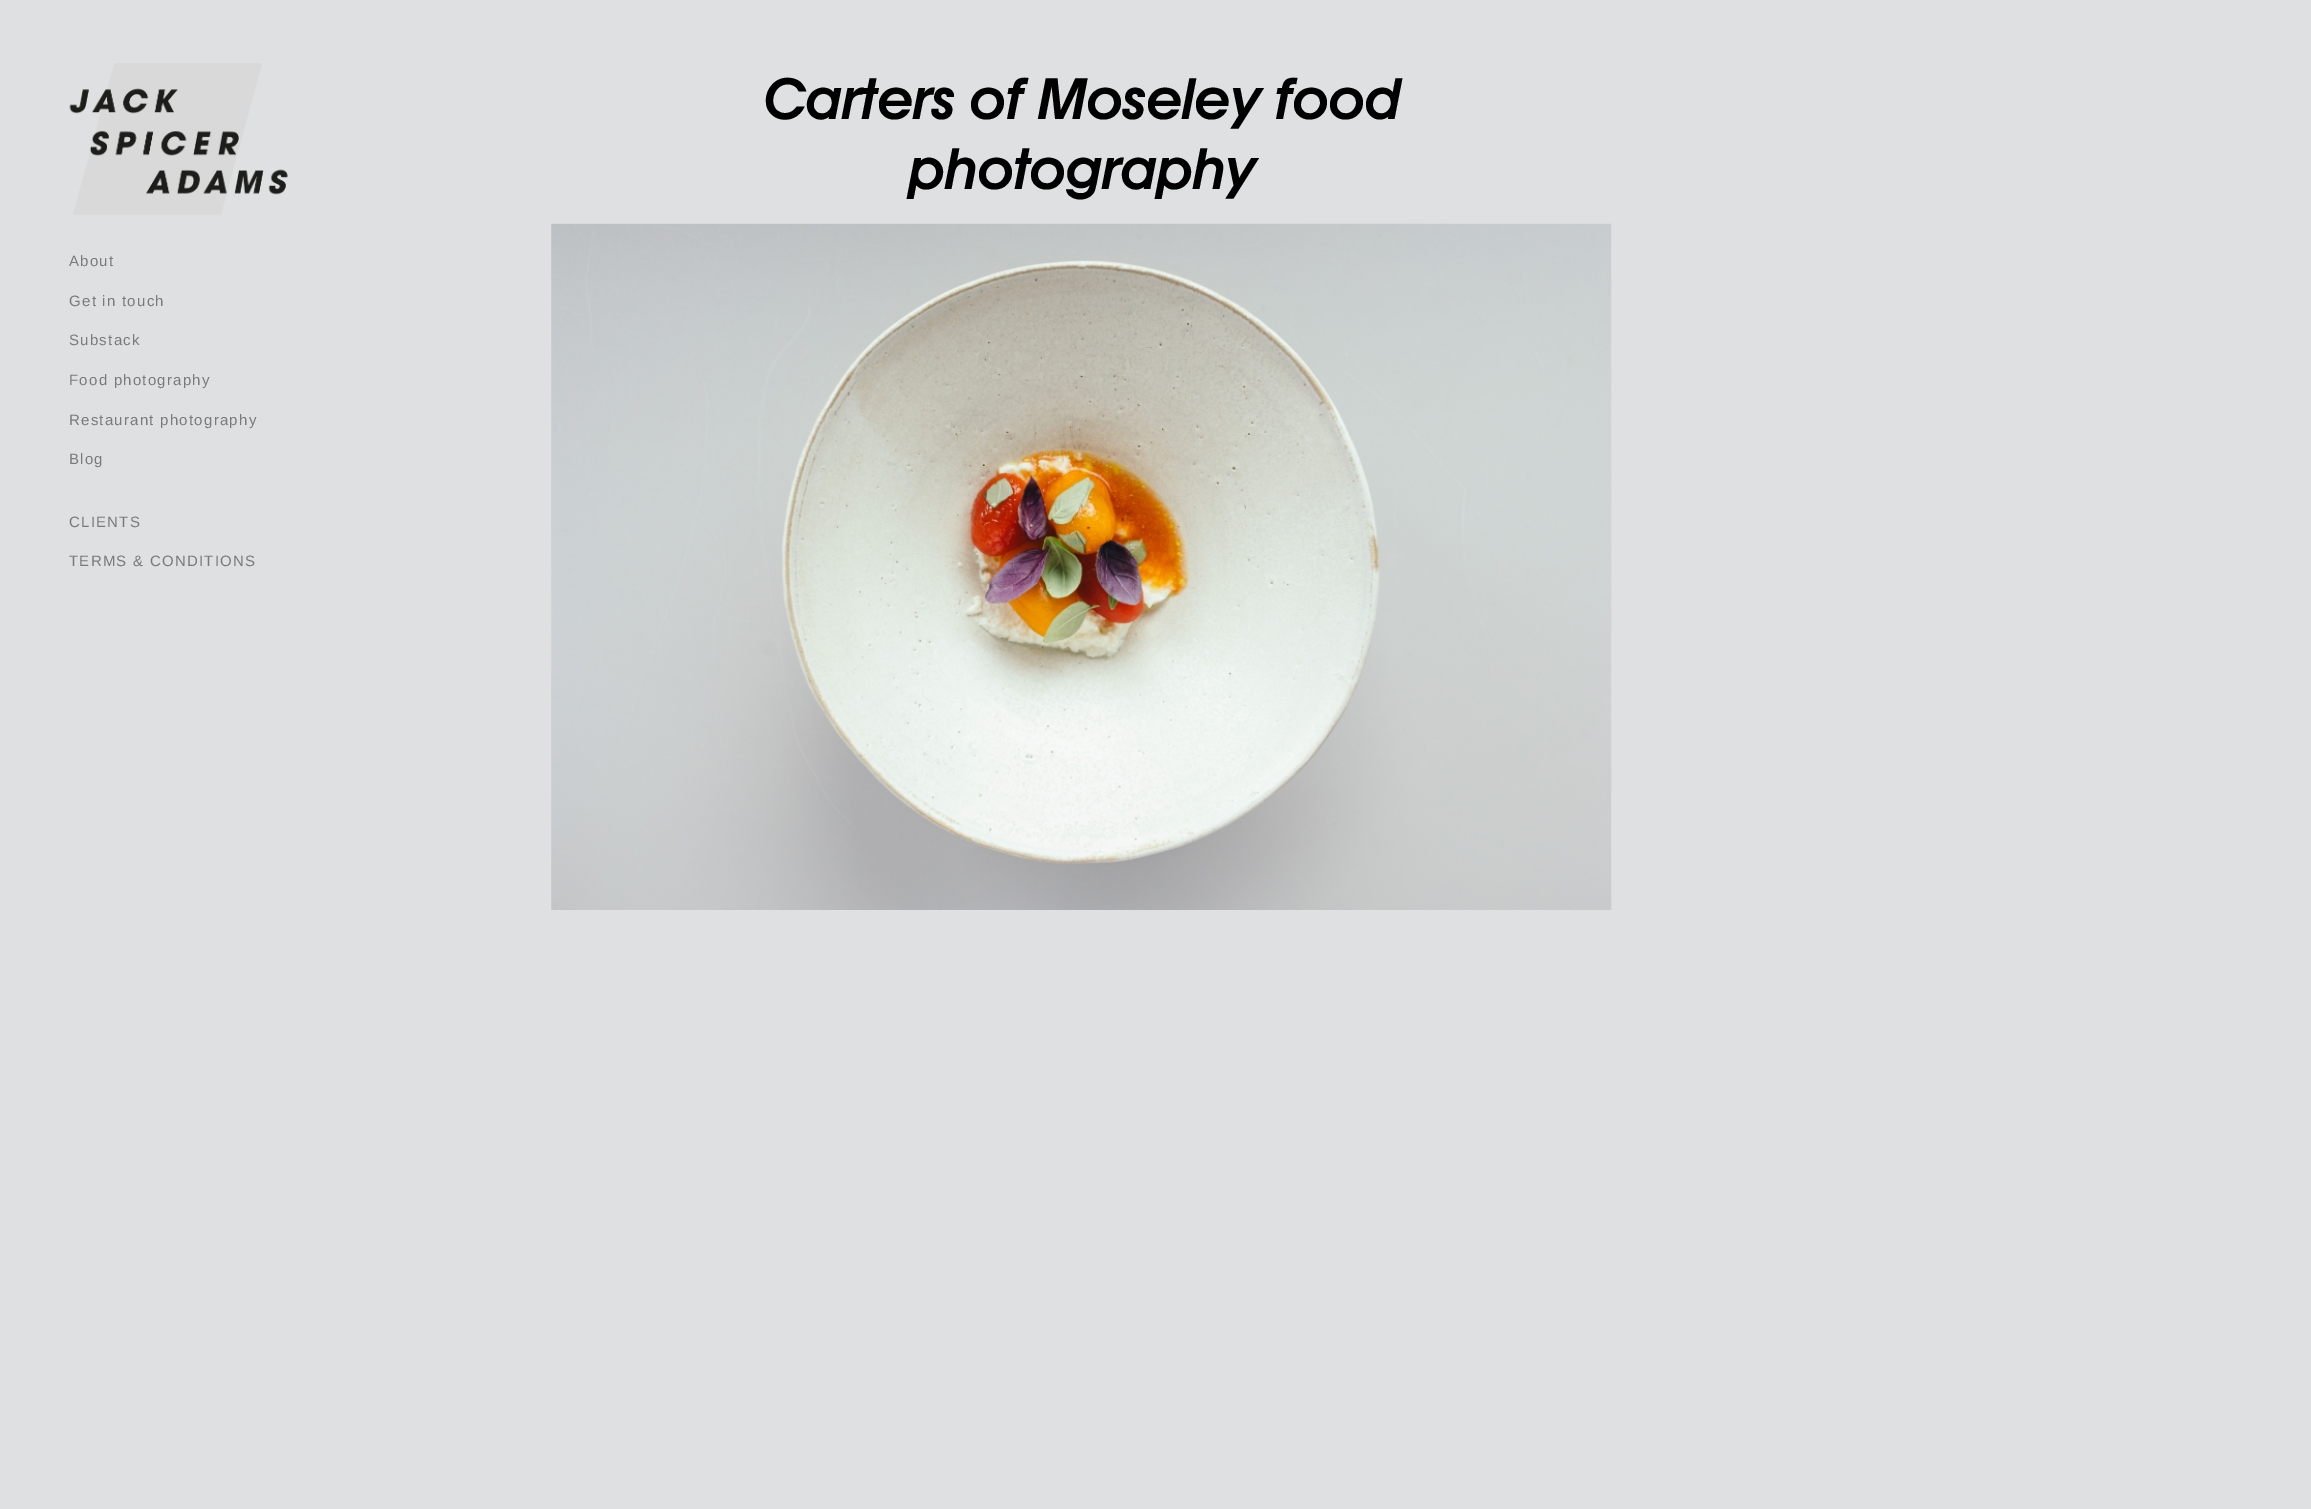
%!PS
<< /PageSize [2311 1509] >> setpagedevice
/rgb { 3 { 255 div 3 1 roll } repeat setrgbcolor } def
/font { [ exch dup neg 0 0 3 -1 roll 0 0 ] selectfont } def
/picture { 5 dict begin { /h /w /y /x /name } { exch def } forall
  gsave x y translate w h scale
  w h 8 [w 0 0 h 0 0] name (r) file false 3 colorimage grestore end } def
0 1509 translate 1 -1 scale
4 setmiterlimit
223 224 225 rgb
0 0 2311 1509 rectfill
(img_01.rgb) 551 223 1061 687 picture
(img_02.rgb) 69 63 219 152 picture
/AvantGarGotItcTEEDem-Italic 61 font
0 0 0 rgb
763 119 moveto -0.9 0 (Carters of Moseley food) ashow
908 189 moveto -0.9 0 (photography) ashow
/LiberationSans-Regular 15 font
121 122 122 rgb
69 266 moveto 1.25 0 (About) ashow
69 306 moveto 1.25 0 (Get in touch) ashow
69 345 moveto 1.25 0 (Substack) ashow
69 385 moveto 1.25 0 (Food photography) ashow
69 425 moveto 1.25 0 (Restaurant photography) ashow
69 464 moveto 1.25 0 (Blog) ashow
69 527 moveto 1.25 0 (CLIENTS) ashow
69 566 moveto 1.25 0 (TERMS & CONDITIONS) ashow
showpage
